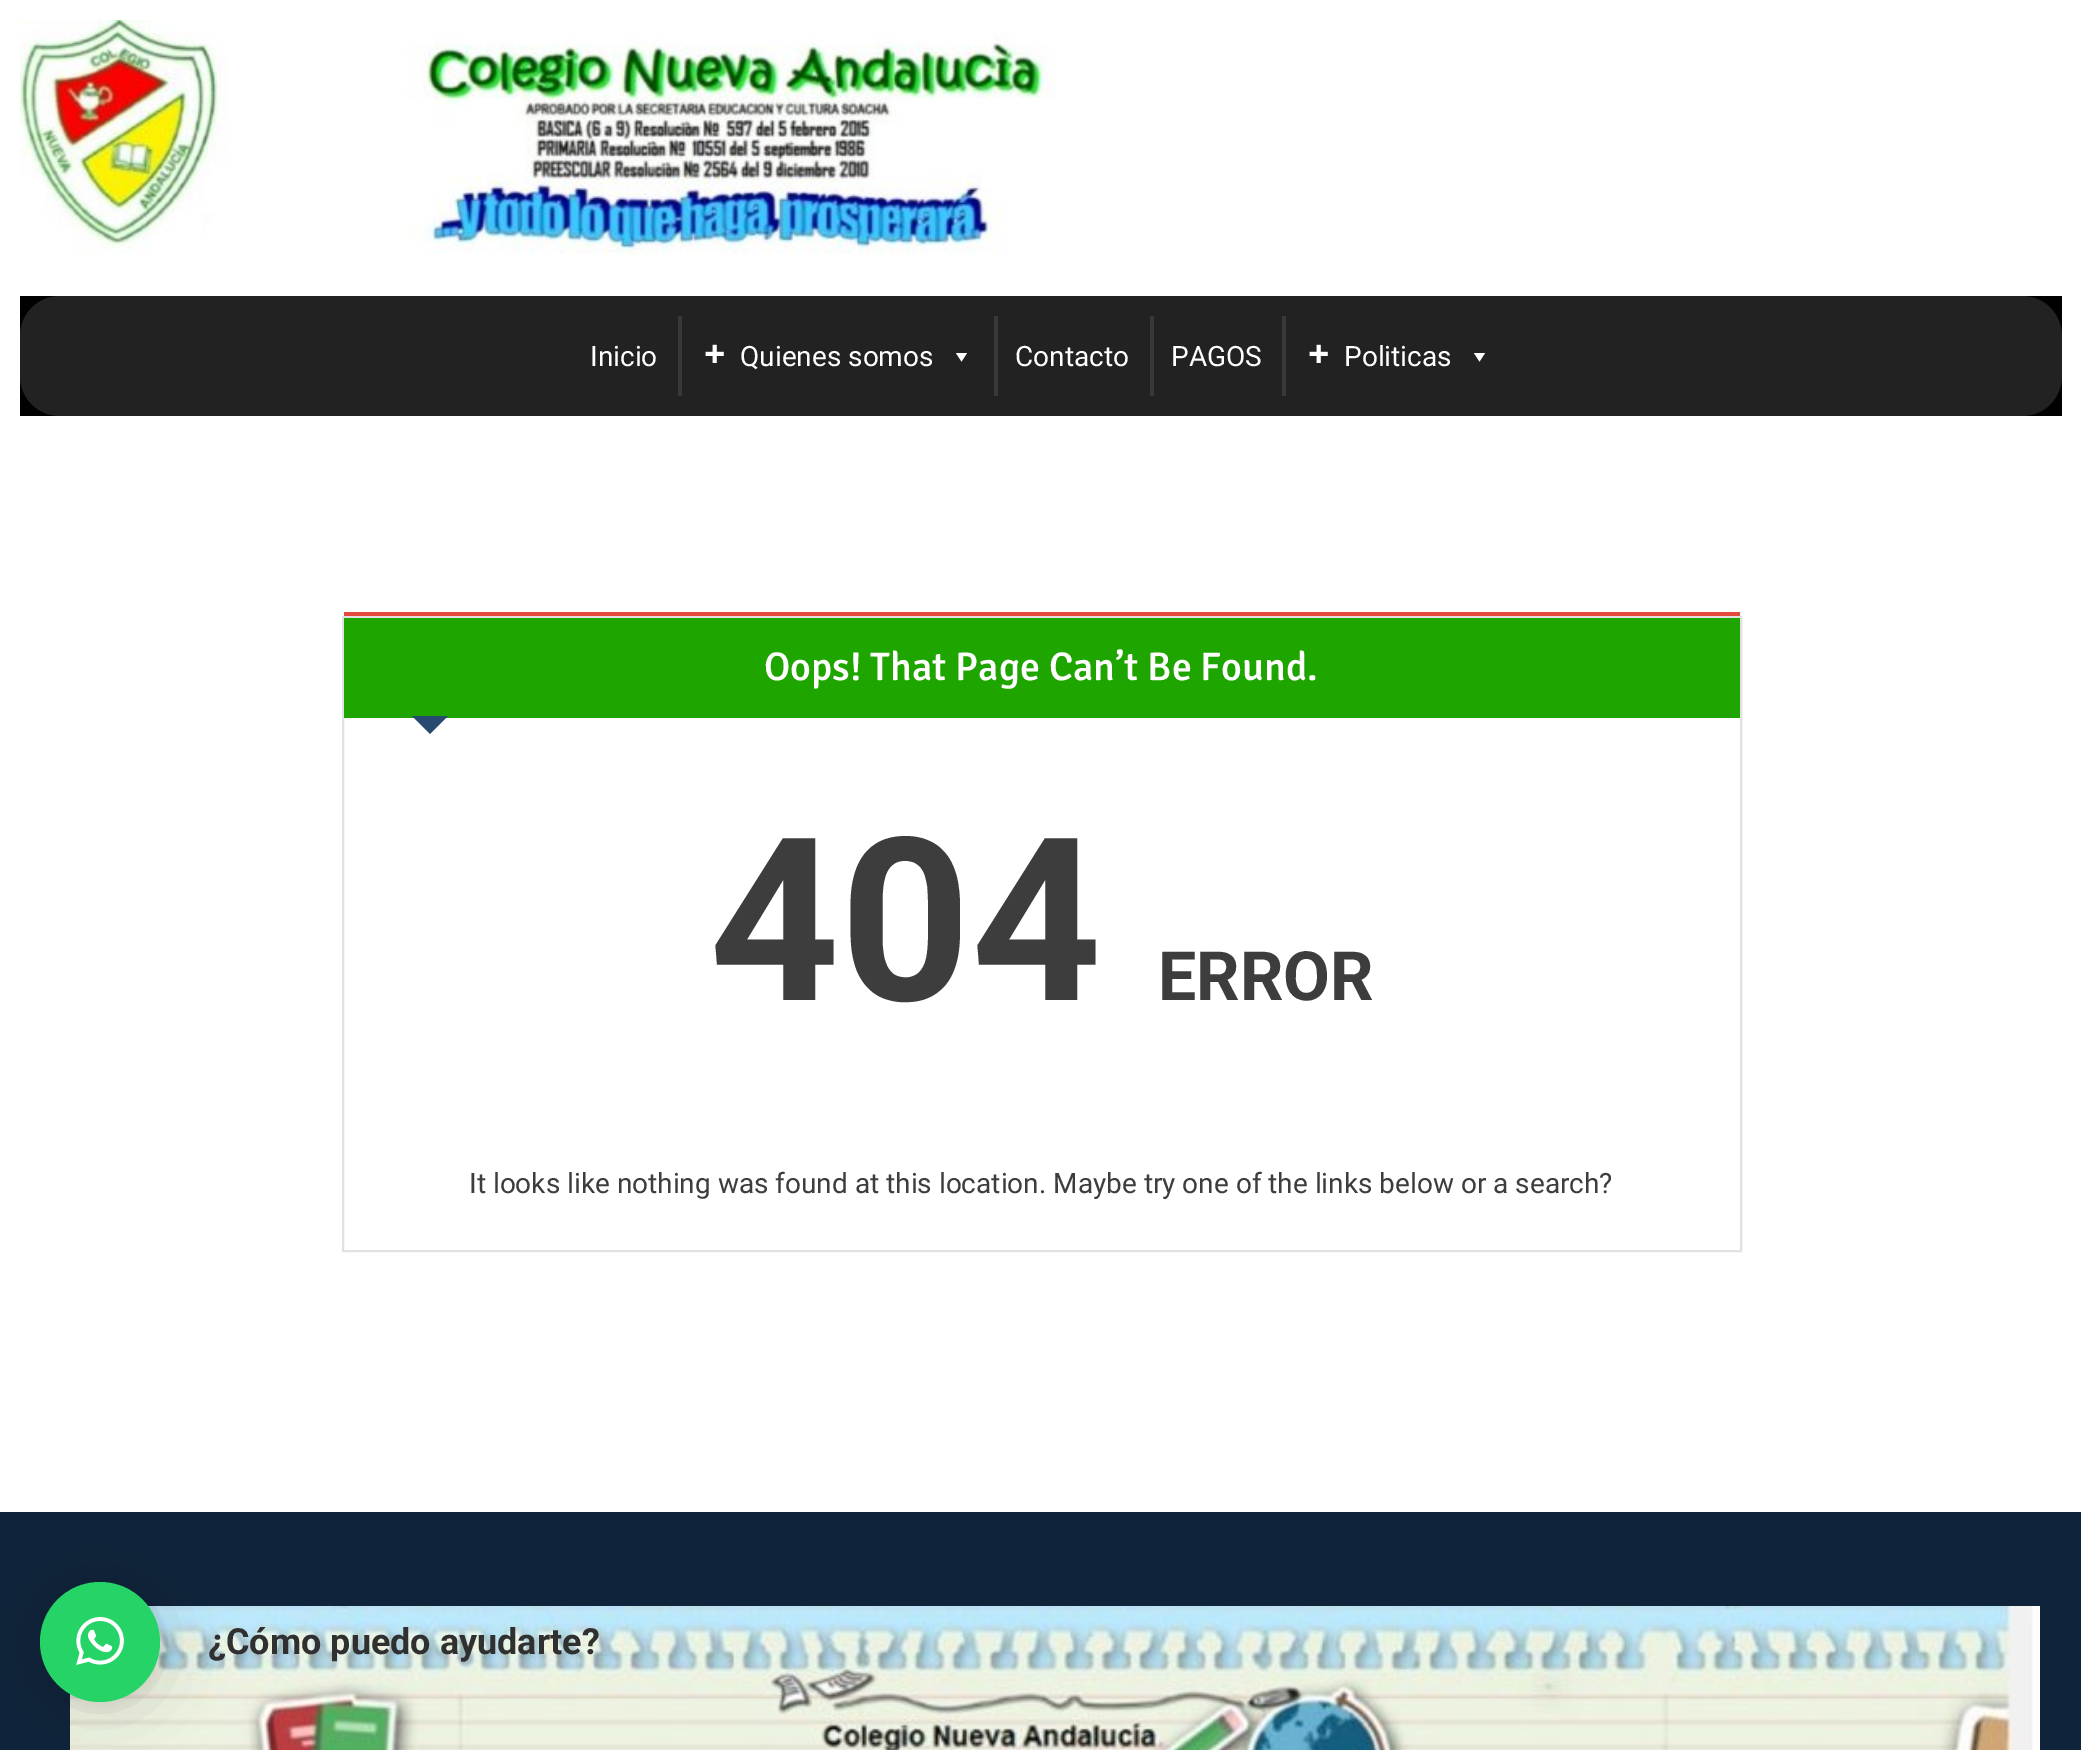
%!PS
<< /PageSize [2081 1750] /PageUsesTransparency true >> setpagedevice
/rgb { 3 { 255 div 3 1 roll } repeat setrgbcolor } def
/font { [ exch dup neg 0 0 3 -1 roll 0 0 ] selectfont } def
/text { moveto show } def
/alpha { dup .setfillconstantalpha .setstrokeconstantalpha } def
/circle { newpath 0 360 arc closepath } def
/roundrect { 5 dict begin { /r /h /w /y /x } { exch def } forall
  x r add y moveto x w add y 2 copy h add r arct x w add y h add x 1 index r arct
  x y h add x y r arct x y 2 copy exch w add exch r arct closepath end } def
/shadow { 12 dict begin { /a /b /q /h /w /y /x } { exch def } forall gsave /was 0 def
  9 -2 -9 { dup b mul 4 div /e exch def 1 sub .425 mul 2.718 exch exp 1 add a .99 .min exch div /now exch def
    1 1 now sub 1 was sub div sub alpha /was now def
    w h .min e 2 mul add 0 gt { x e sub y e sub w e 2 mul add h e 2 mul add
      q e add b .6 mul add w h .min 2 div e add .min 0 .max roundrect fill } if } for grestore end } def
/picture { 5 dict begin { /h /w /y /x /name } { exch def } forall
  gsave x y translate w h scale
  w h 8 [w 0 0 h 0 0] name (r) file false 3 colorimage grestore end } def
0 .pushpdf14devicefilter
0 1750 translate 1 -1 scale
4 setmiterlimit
255 255 255 rgb
0 0 2081 1750 rectfill
(img_01.rgb) 20 20 1037 236 picture
2 1 1 rgb
20 296 2042 120 rectfill
34 34 34 rgb
20 296 2042 120 40 roundrect fill
56 56 56 rgb
678 316 4 80 rectfill
(img_02.rgb) 705 344 19 19 picture
255 255 255 rgb
967 353 moveto -5.5 8.5 rlineto -5.5 -8.5 rlineto closepath fill
56 56 56 rgb
994 316 4 80 rectfill
1150 316 4 80 rectfill
1282 316 4 80 rectfill
(img_02.rgb) 1309 344 19 19 picture
255 255 255 rgb
1485 353 moveto -5.5 8.5 rlineto -5.5 -8.5 rlineto closepath fill
225 225 225 rgb
2 setlinewidth
343 617 1398 634 rectstroke
30 165 0 rgb
344 618 1396 100 rectfill
228 74 60 rgb
344 612 1396 4 rectfill
41 74 112 rgb
412 716 moveto 36 0 rlineto -18 18 rlineto closepath fill
15 35 58 rgb
0 1512 2081 238 rectfill
(img_03.rgb) 70 1606 1970 144 picture
0 0 0 rgb
40 1586 120 120 60 32 0.16 shadow
40 1584 120 120 60 6 0.06 shadow
37 211 102 rgb
100 1642 60 circle fill
(img_04.rgb) 76 1617 48 48 picture
/Roboto-Regular 28 font
255 255 255 rgb
(Inicio) 590 366 text
(Quienes somos) 740 366 text
(Contacto) 1015 366 text
(PAGOS) 1171 366 text
(Politicas) 1344 366 text
/Signika-Medium 40 font
(Oops! That Page Can’t Be Found.) 764 680 text
/Roboto-Bold 228 font
61 61 61 rgb
(404) 709 1000 text
/Roboto-Bold 68 font
(ERROR) 1158 1000 text
/Roboto-Regular 28 font
(It looks like nothing was found at this location. Maybe try one of the links below or a search?) 469 1193 text
/Roboto-Bold 36 font
48 48 48 rgb
(¿Cómo puedo ayudarte?) 208 1654 text
.poppdf14devicefilter showpage
